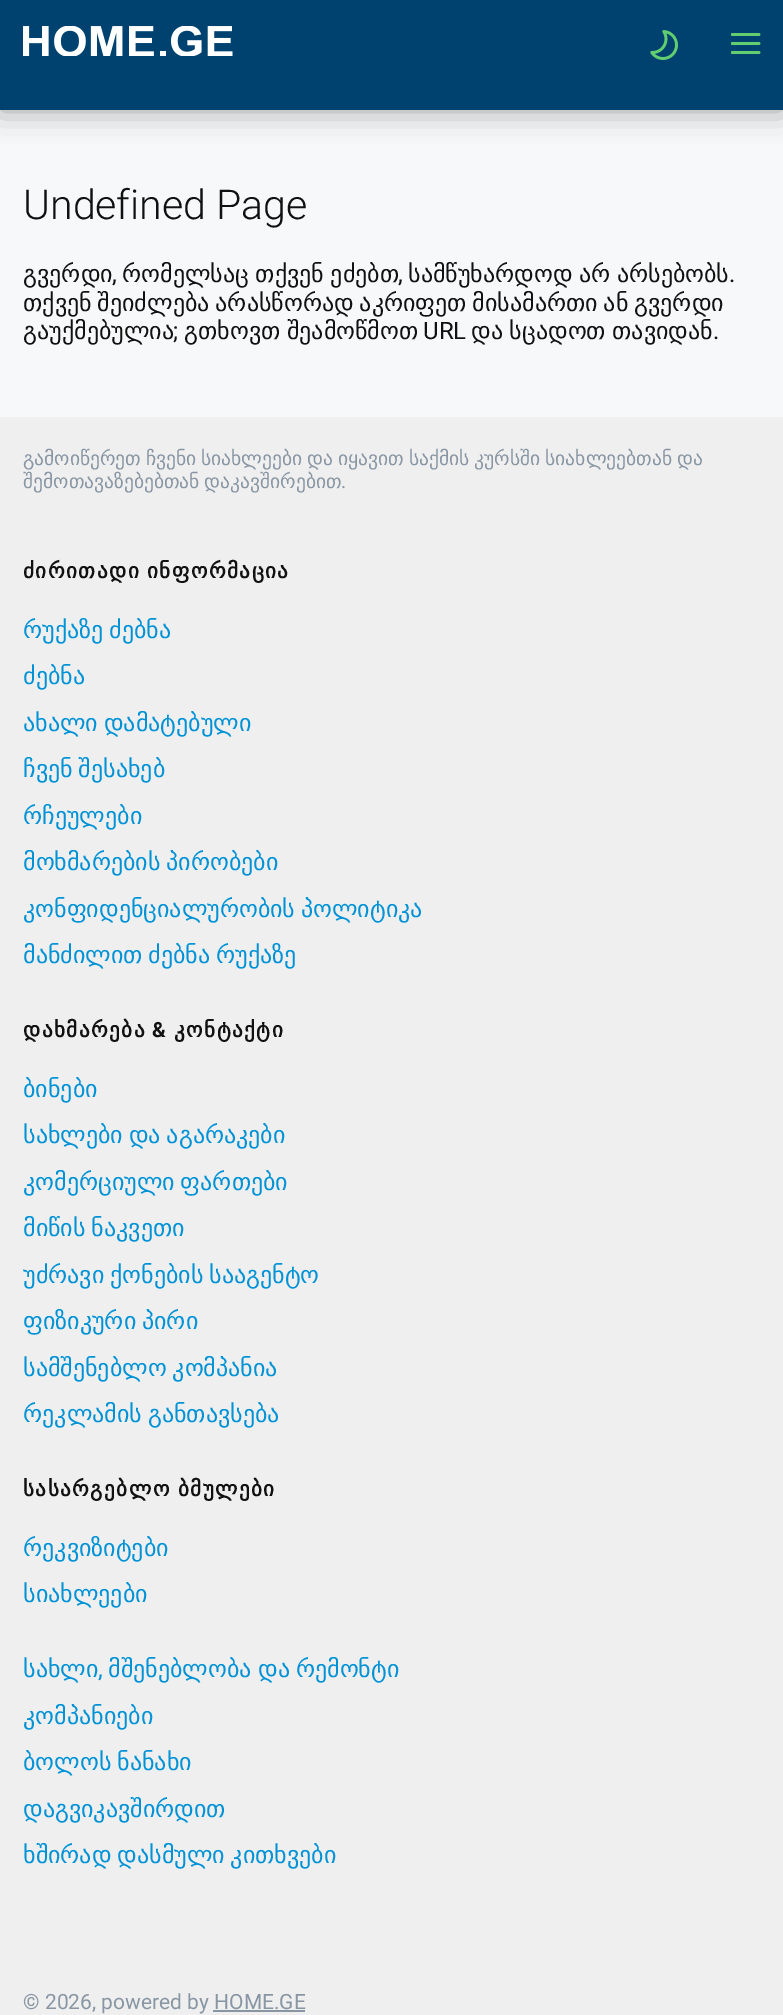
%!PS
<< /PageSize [783 2015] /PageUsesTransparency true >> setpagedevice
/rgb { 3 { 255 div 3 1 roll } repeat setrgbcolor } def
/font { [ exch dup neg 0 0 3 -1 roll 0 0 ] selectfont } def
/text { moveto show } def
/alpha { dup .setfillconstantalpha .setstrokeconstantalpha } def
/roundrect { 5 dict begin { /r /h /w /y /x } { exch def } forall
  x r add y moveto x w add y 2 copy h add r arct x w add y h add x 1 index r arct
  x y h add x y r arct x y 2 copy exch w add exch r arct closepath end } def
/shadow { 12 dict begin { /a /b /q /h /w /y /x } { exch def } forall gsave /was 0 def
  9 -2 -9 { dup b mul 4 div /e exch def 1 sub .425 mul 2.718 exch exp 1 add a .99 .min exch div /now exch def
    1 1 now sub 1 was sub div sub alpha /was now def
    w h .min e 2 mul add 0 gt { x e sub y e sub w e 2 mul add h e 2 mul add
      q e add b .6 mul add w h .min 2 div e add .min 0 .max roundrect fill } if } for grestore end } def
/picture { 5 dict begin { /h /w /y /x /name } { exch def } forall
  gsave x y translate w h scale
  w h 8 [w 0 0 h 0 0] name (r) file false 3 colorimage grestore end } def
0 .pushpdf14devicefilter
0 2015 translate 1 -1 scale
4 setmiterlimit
247 248 249 rgb
0 0 783 2015 rectfill
0 0 0 rgb
0 -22 783 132 0 15 0.36 shadow
0 66 111 rgb
0 0 783 110 rectfill
(img_01.rgb) 23 26 210 30 picture
(img_02.rgb) 650 30 28 30 picture
(img_03.rgb) 731 33 30 21 picture
239 239 239 rgb
0 417 783 1598 rectfill
136 149 163 rgb
213 2010 92 2 rectfill
/Roboto-Light 41 font
17 17 17 rgb
(Undefined Page) 23 219 text
/DejaVuSans-Regular 24 font
(გვერდი) 23 282 text
/Roboto-Regular 24 font
(,) 112 282 text
/DejaVuSans-Regular 24 font
122 282 moveto -1 0 32 (რომელსაც თქვენ ეძებთ) widthshow
/Roboto-Regular 24 font
(,) 398 282 text
/DejaVuSans-Regular 24 font
408 282 moveto -1 0 32 (სამწუხარდოდ არ არსებობს) widthshow
/Roboto-Regular 24 font
(.) 729 282 text
/DejaVuSans-Regular 24 font
23 311 moveto -1.75 0 32 (თქვენ შეიძლება არასწორად აკრიფეთ მისამართი ან გვერდი) widthshow
(გაუქმებულია) 23 339 text
/Roboto-Regular 24 font
(;) 173 339 text
/DejaVuSans-Regular 24 font
184 339 moveto -1 0 32 (გთხოვთ შეამოწმოთ) widthshow
/Roboto-Regular 24 font
(URL) 423 339 text
/DejaVuSans-Regular 24 font
471 339 moveto -1 0 32 (და სცადოთ თავიდან) widthshow
/Roboto-Regular 24 font
(.) 713 339 text
/DejaVuSans-Regular 19.5 font
136 149 163 rgb
23 465 moveto -1.25 0 32 (გამოიწერეთ ჩვენი სიახლეები და იყავით საქმის კურსში სიახლეებთან და) widthshow
23 488 moveto -1.25 0 32 (შემოთავაზებებთან დაკავშირებით) widthshow
/Roboto-Regular 19.5 font
(.) 341 488 text
/DejaVuSans-Bold 21 font
17 17 17 rgb
23 578 moveto -1 0 32 1.5 0 (ძირითადი ინფორმაცია) awidthshow
/DejaVuSans-Regular 24 font
0 146 214 rgb
23 638 moveto -1.75 0 32 (რუქაზე ძებნა) widthshow
(ძებნა) 23 684 text
23 731 moveto -1.75 0 32 (ახალი დამატებული) widthshow
23 777 moveto -1.75 0 32 (ჩვენ შესახებ) widthshow
(რჩეულები) 23 824 text
23 870 moveto -1.75 0 32 (მოხმარების პირობები) widthshow
23 917 moveto -1.75 0 32 (კონფიდენციალურობის პოლიტიკა) widthshow
23 963 moveto -1.75 0 32 (მანძილით ძებნა რუქაზე) widthshow
/DejaVuSans-Bold 21 font
17 17 17 rgb
23 1037 moveto 1.5 0 (დახმარება) ashow
/Roboto-Bold 21 font
152 1037 moveto 1.5 0 (&) ashow
/DejaVuSans-Bold 21 font
174 1037 moveto 1.5 0 (კონტაქტი) ashow
/DejaVuSans-Regular 24 font
0 146 214 rgb
(ბინები) 23 1097 text
23 1143 moveto -1.75 0 32 (სახლები და აგარაკები) widthshow
23 1190 moveto -1.75 0 32 (კომერციული ფართები) widthshow
23 1236 moveto -1.75 0 32 (მიწის ნაკვეთი) widthshow
gsave
23 1254 297 41 rectclip
23 1283 moveto -1.75 0 32 (უძრავი ქონების სააგენტო) widthshow
grestore
23 1329 moveto -1.75 0 32 (ფიზიკური პირი) widthshow
23 1376 moveto -1.75 0 32 (სამშენებლო კომპანია) widthshow
23 1422 moveto -1.75 0 32 (რეკლამის განთავსება) widthshow
/DejaVuSans-Bold 21 font
17 17 17 rgb
23 1496 moveto -1 0 32 1.5 0 (სასარგებლო ბმულები) awidthshow
/DejaVuSans-Regular 24 font
0 146 214 rgb
(რეკვიზიტები) 23 1556 text
(სიახლეები) 23 1602 text
(სახლი) 23 1677 text
/Roboto-Regular 24 font
(,) 98 1677 text
/DejaVuSans-Regular 24 font
(მშენებლობა) 108 1677 text
258 1677 moveto -1.75 0 32 (და რემონტი) widthshow
(კომპანიები) 23 1724 text
23 1770 moveto -1.75 0 32 (ბოლოს ნანახი) widthshow
(დაგვიკავშირდით) 23 1817 text
23 1863 moveto -1.75 0 32 (ხშირად დასმული კითხვები) widthshow
/Roboto-Regular 21 font
136 149 163 rgb
(© 2026, powered by HOME.GE) 23 2009 text
.poppdf14devicefilter showpage
